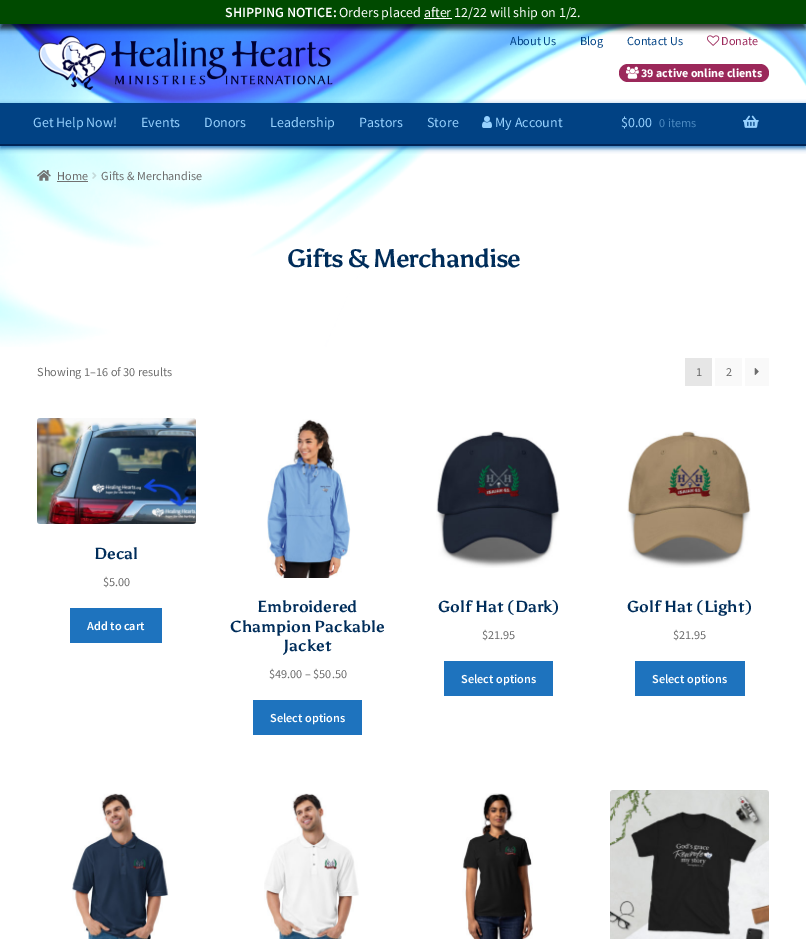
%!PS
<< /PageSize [806 939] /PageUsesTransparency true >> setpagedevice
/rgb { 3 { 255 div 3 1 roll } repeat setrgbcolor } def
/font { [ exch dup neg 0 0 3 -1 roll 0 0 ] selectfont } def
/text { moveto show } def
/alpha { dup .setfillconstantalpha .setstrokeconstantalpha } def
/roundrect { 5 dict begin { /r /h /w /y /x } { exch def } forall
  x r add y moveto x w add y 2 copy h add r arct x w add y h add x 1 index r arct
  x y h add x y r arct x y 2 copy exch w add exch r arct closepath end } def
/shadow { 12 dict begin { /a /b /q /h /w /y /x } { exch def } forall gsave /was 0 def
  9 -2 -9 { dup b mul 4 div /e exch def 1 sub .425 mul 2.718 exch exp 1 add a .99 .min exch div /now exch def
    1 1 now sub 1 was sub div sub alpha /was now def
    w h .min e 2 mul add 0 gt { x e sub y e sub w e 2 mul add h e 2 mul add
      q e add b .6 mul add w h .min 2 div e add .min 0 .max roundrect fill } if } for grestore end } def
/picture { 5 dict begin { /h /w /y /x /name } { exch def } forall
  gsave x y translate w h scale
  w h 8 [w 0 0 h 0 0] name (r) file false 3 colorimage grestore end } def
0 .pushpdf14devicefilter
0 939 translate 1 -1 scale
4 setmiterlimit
255 255 255 rgb
0 0 806 939 rectfill
(img_01.rgb) 0 24 806 323 picture
(img_02.rgb) 38 35 295 55 picture
(img_03.rgb) 707 35 13 11 picture
0 0 0 rgb
0 5 806 24 0 2.5 0.75 shadow
0 74 0 rgb
0 0 806 24 rectfill
255 255 255 rgb
424 18 28 1 rectfill
155 40 90 rgb
619 64 150 18 9 roundrect fill
(img_04.rgb) 626 66 13 13 picture
20 105 180 rgb
0 105 806 43 0 2.5 1 shadow
1 66 132 rgb
0 103 806 41 rectfill
0 38 88 rgb
0 144 806 2 rectfill
(img_05.rgb) 482 116 10 12 picture
(img_06.rgb) 743 115 16 13 picture
(img_07.rgb) 37 170 14 11 picture
114 114 114 rgb
57 181 31 1 rectfill
(img_08.rgb) 92 172 5 7 picture
230 230 230 rgb
685 358 27 28 rectfill
249 249 249 rgb
715 358 27 28 rectfill
745 358 24 28 rectfill
(img_09.rgb) 754 368 5 7 picture
(img_10.rgb) 37 418 159 106 picture
30 115 190 rgb
70 608 92 35 rectfill
(img_11.rgb) 267 419 84 159 picture
253 700 109 35 rectfill
(img_12.rgb) 436 431 124 137 picture
444 661 109 35 rectfill
(img_13.rgb) 627 431 124 137 picture
635 661 110 35 rectfill
(img_14.rgb) 72 793 97 146 picture
(img_15.rgb) 264 793 95 146 picture
(img_16.rgb) 462 793 71 146 picture
(img_17.rgb) 610 790 159 149 picture
/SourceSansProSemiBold-SemiBold 14 font
255 255 255 rgb
(SHIPPING NOTICE:) 225 17 text
/SourceSansPro-Regular 14 font
(Orders placed after 12/22 will ship on 1/2.) 339 17 text
/SourceSansPro-Regular 12.25 font
1 66 132 rgb
(About Us) 510 45 text
(Blog) 580 45 text
(Contact Us) 627 45 text
155 40 90 rgb
(Donate) 721 45 text
/SourceSansPro-Bold 12 font
255 255 255 rgb
(39 active online clients) 641 77 text
/SourceSansPro-Regular 14 font
151 209 254 rgb
(Get Help Now!) 33 127 text
(Events) 141 127 text
(Donors) 204 127 text
(Leadership) 270 127 text
(Pastors) 359 127 text
(Store) 427 127 text
(My Account) 495 127 text
($0.00) 621 127 text
/SourceSansPro-Regular 12.25 font
76 138 193 rgb
(0 items) 659 127 text
109 109 109 rgb
(Home) 57 180 text
(Gifts & Merchandise) 101 180 text
/Asul-Bold 25.25 font
0 45 90 rgb
287 267 moveto -1 0 (Gifts & Merchandise) ashow
/SourceSansPro-Regular 12.25 font
109 109 109 rgb
(Showing 1–16 of 30 results) 37 376 text
99 99 99 rgb
(1) 696 376 text
109 109 109 rgb
(2) 726 376 text
/Asul-Bold 16 font
0 45 90 rgb
(Decal) 94 559 text
/SourceSansPro-Regular 12.25 font
109 109 109 rgb
($5.00) 103 586 text
/SourceSansProSemiBold-SemiBold 12.25 font
255 255 255 rgb
(Add to cart) 87 630 text
/Asul-Bold 16 font
0 45 90 rgb
(Embroidered) 257 612 text
(Champion Packable) 230 632 text
(Jacket) 283 651 text
/SourceSansPro-Regular 12.25 font
109 109 109 rgb
($49.00 – $50.50) 269 678 text
/SourceSansProSemiBold-SemiBold 12.25 font
255 255 255 rgb
(Select options) 270 722 text
/Asul-Bold 16 font
0 45 90 rgb
(Golf Hat \(Dark\)) 438 612 text
/SourceSansPro-Regular 12.25 font
109 109 109 rgb
($21.95) 482 639 text
/SourceSansProSemiBold-SemiBold 12.25 font
255 255 255 rgb
(Select options) 461 683 text
/Asul-Bold 16 font
0 45 90 rgb
(Golf Hat \(Light\)) 627 612 text
/SourceSansPro-Regular 12.25 font
109 109 109 rgb
($21.95) 673 639 text
/SourceSansProSemiBold-SemiBold 12.25 font
255 255 255 rgb
(Select options) 652 683 text
.poppdf14devicefilter showpage
